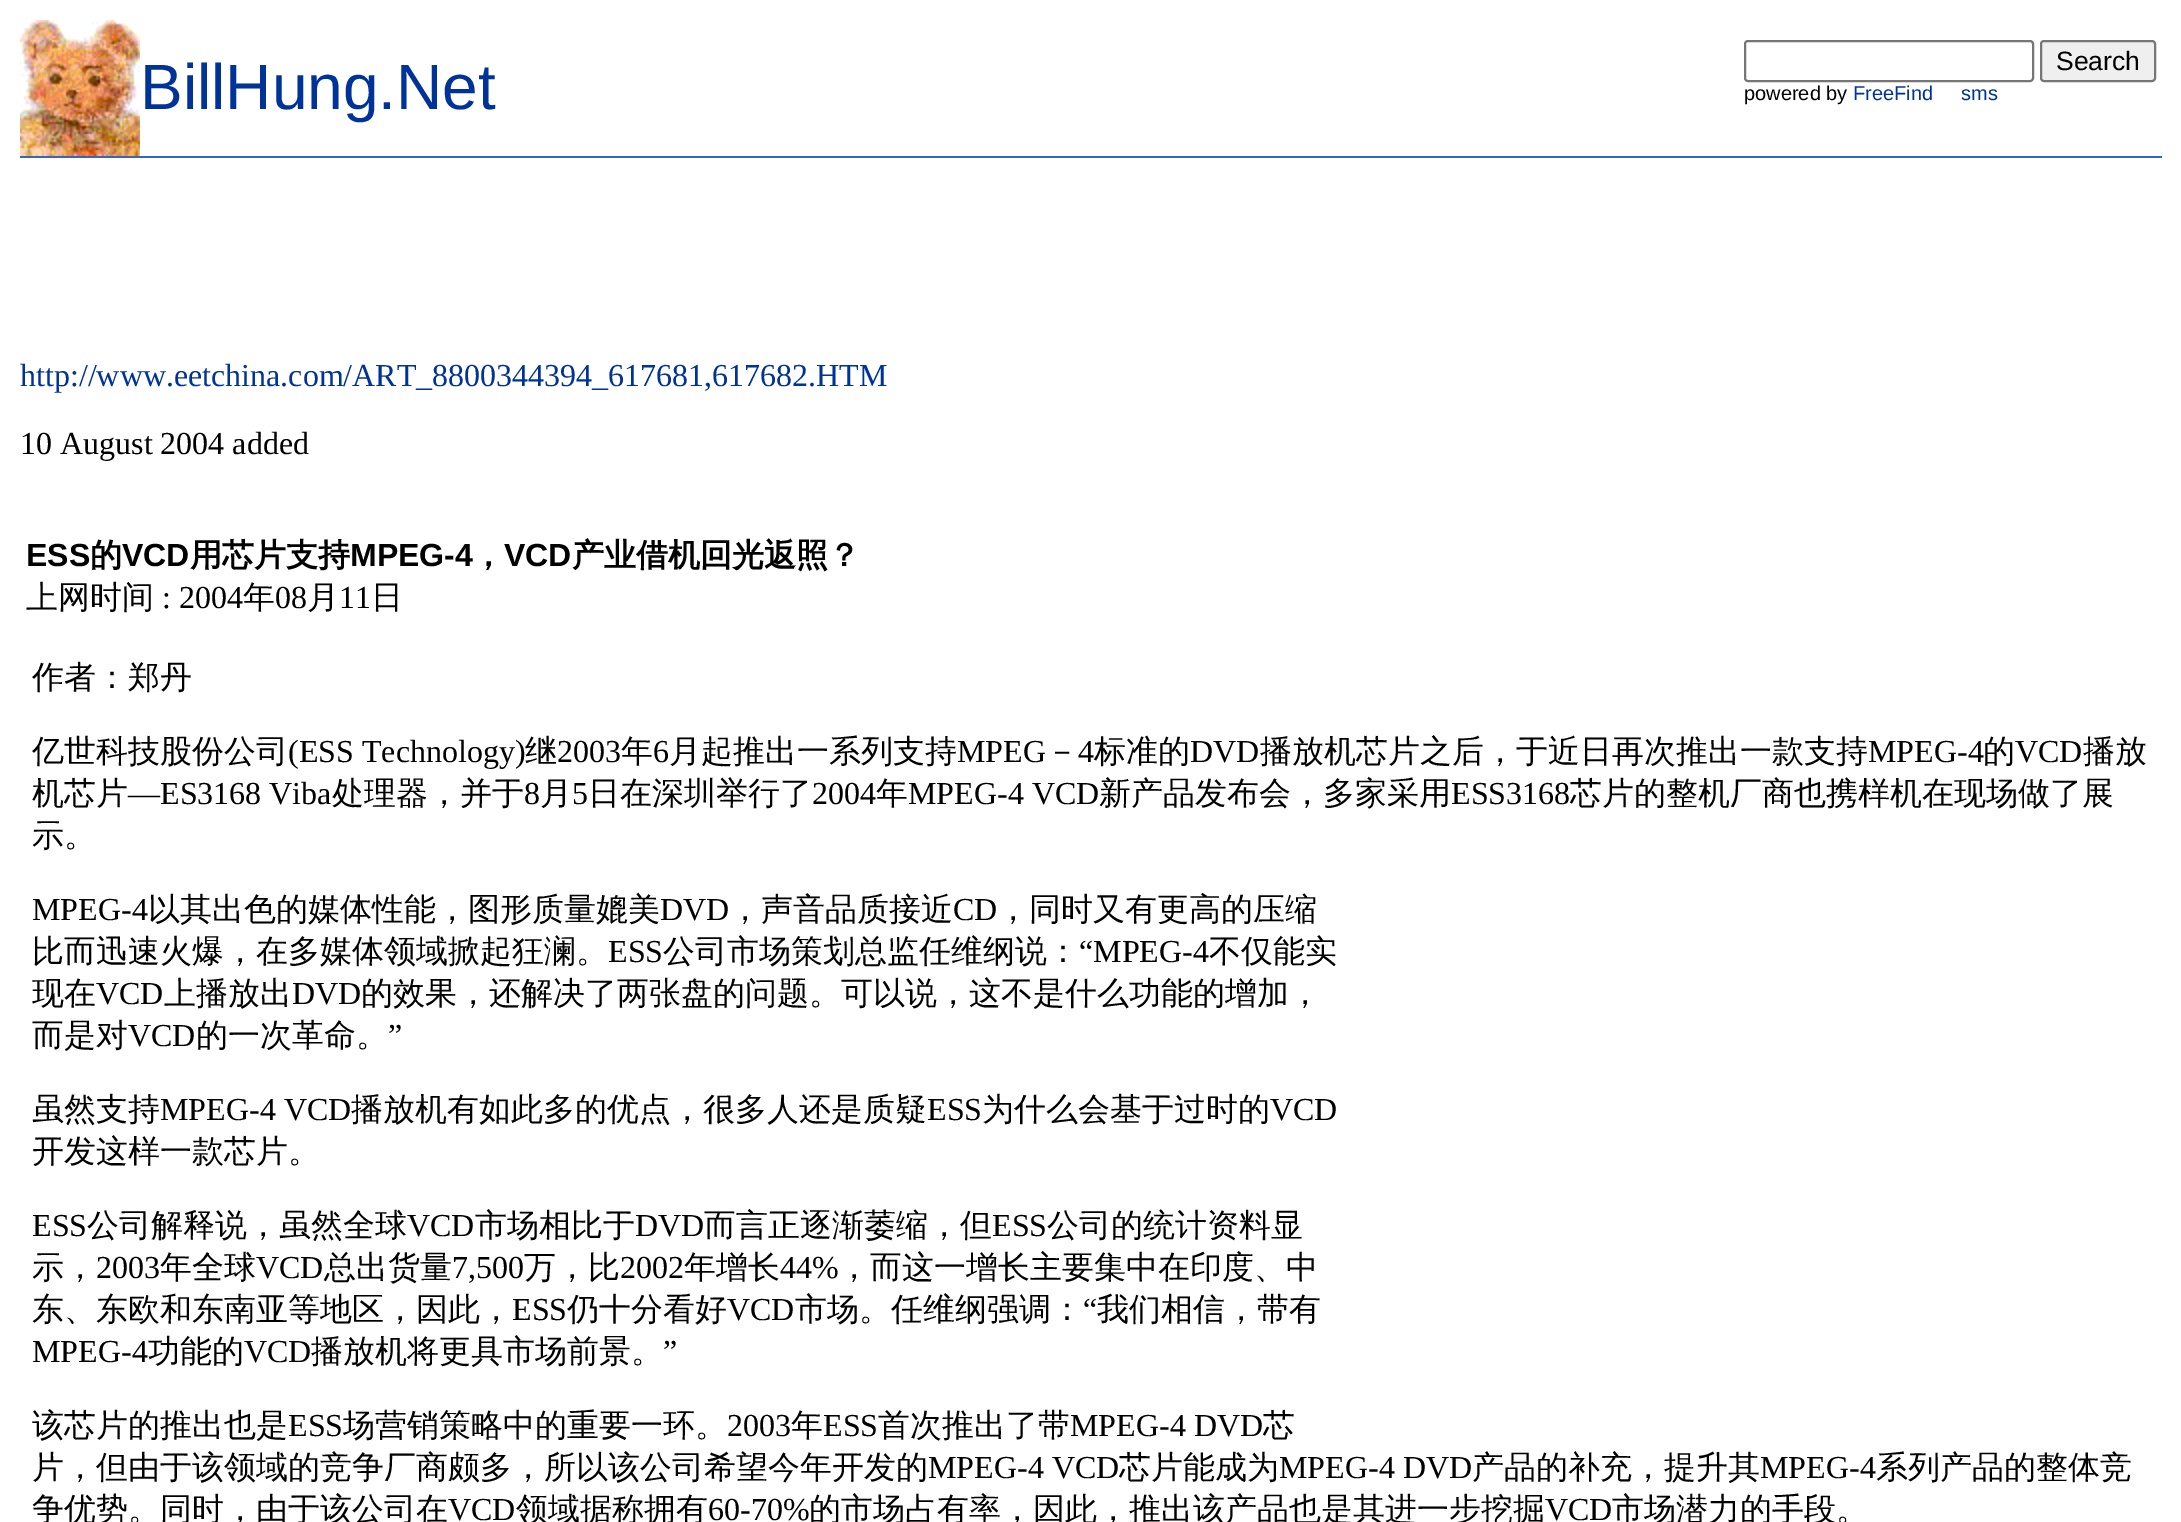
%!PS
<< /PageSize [2181 1522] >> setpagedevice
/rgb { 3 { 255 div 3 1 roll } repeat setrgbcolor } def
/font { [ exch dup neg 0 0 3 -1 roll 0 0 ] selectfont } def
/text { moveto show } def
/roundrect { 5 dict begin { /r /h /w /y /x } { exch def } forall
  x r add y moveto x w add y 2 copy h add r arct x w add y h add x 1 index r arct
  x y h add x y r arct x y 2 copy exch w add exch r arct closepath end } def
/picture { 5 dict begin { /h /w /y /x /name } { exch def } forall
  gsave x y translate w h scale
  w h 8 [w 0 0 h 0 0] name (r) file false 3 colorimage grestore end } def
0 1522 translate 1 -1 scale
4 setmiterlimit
255 255 255 rgb
0 0 2181 1522 rectfill
(img_01.rgb) 20 20 120 136 picture
118 118 118 rgb
2 setlinewidth
1745 41 288 40 3 roundrect stroke
239 239 239 rgb
2041 41 114 40 3 roundrect gsave fill grestore
118 118 118 rgb
stroke
51 102 204 rgb
20 156 2142 2 rectfill
/LiberationSans-Regular 64 font
0 51 153 rgb
(BillHung.Net) 140 109 text
/LiberationSans-Regular 26.5 font
0 0 0 rgb
(Search) 2056 70 text
/LiberationSans-Regular 20 font
(powered by) 1744 100 text
0 51 153 rgb
(FreeFind) 1853 100 text
(sms) 1961 100 text
/LiberationSerif-Regular 32 font
(http://www.eetchina.com/ART_8800344394_617681,617682.HTM) 20 386 text
0 0 0 rgb
(10 August 2004 added) 20 454 text
/LiberationSans-Bold 32 font
(ESS) 26 566 text
/WenQuanYiZenHei-Bold 32 font
(的) 90 566 text
/LiberationSans-Bold 32 font
(VCD) 122 566 text
/WenQuanYiZenHei-Bold 32 font
(用芯片支持) 190 566 text
/LiberationSans-Bold 32 font
(MPEG-4) 350 566 text
/WenQuanYiZenHei-Bold 32 font
(，) 472 566 text
/LiberationSans-Bold 32 font
(VCD) 504 566 text
/WenQuanYiZenHei-Bold 32 font
(产业借机回光返照？) 572 566 text
/WenQuanYiZenHei-Medium 32 font
(上网时间) 26 608 text
/LiberationSerif-Regular 32 font
(: 2004) 162 608 text
/WenQuanYiZenHei-Medium 32 font
(年) 243 608 text
/LiberationSerif-Regular 32 font
(08) 275 608 text
/WenQuanYiZenHei-Medium 32 font
(月) 307 608 text
/LiberationSerif-Regular 32 font
(11) 339 608 text
/WenQuanYiZenHei-Medium 32 font
(日) 371 608 text
(作者：郑丹) 32 688 text
(亿世科技股份公司) 32 762 text
/LiberationSerif-Regular 32 font
(\(ESS Technology\)) 288 762 text
/WenQuanYiZenHei-Medium 32 font
(继) 525 762 text
/LiberationSerif-Regular 32 font
(2003) 557 762 text
/WenQuanYiZenHei-Medium 32 font
(年) 621 762 text
/LiberationSerif-Regular 32 font
(6) 653 762 text
/WenQuanYiZenHei-Medium 32 font
(月起推出一系列支持) 669 762 text
/LiberationSerif-Regular 32 font
(MPEG) 957 762 text
/WenQuanYiZenHei-Medium 32 font
(－) 1046 762 text
/LiberationSerif-Regular 32 font
(4) 1078 762 text
/WenQuanYiZenHei-Medium 32 font
(标准的) 1094 762 text
/LiberationSerif-Regular 32 font
(DVD) 1190 762 text
/WenQuanYiZenHei-Medium 32 font
(播放机芯片之后，于近日再次推出一款支持) 1260 762 text
/LiberationSerif-Regular 32 font
(MPEG-4) 1868 762 text
/WenQuanYiZenHei-Medium 32 font
(的) 1983 762 text
/LiberationSerif-Regular 32 font
(VCD) 2015 762 text
/WenQuanYiZenHei-Medium 32 font
(播放) 2083 762 text
(机芯片) 32 804 text
/LiberationSerif-Regular 32 font
(—ES3168 Viba) 128 804 text
/WenQuanYiZenHei-Medium 32 font
(处理器，并于) 332 804 text
/LiberationSerif-Regular 32 font
(8) 524 804 text
/WenQuanYiZenHei-Medium 32 font
(月) 540 804 text
/LiberationSerif-Regular 32 font
(5) 572 804 text
/WenQuanYiZenHei-Medium 32 font
(日在深圳举行了) 588 804 text
/LiberationSerif-Regular 32 font
(2004) 812 804 text
/WenQuanYiZenHei-Medium 32 font
(年) 876 804 text
/LiberationSerif-Regular 32 font
(MPEG-4 VCD) 908 804 text
/WenQuanYiZenHei-Medium 32 font
(新产品发布会，多家采用) 1099 804 text
/LiberationSerif-Regular 32 font
(ESS3168) 1451 804 text
/WenQuanYiZenHei-Medium 32 font
(芯片的整机厂商也携样机在现场做了展) 1570 804 text
(示。) 32 846 text
/LiberationSerif-Regular 32 font
(MPEG-4) 32 920 text
/WenQuanYiZenHei-Medium 32 font
(以其出色的媒体性能，图形质量媲美) 148 920 text
/LiberationSerif-Regular 32 font
(DVD) 660 920 text
/WenQuanYiZenHei-Medium 32 font
(，声音品质接近) 729 920 text
/LiberationSerif-Regular 32 font
(CD) 953 920 text
/WenQuanYiZenHei-Medium 32 font
(，同时又有更高的压缩) 997 920 text
(比而迅速火爆，在多媒体领域掀起狂澜。) 32 962 text
/LiberationSerif-Regular 32 font
(ESS) 608 962 text
/WenQuanYiZenHei-Medium 32 font
(公司市场策划总监任维纲说：) 663 962 text
/LiberationSerif-Regular 32 font
(“MPEG-4) 1079 962 text
/WenQuanYiZenHei-Medium 32 font
(不仅能实) 1209 962 text
(现在) 32 1004 text
/LiberationSerif-Regular 32 font
(VCD) 96 1004 text
/WenQuanYiZenHei-Medium 32 font
(上播放出) 164 1004 text
/LiberationSerif-Regular 32 font
(DVD) 292 1004 text
/WenQuanYiZenHei-Medium 32 font
(的效果，还解决了两张盘的问题。可以说，这不是什么功能的增加，) 361 1004 text
(而是对) 32 1046 text
/LiberationSerif-Regular 32 font
(VCD) 128 1046 text
/WenQuanYiZenHei-Medium 32 font
(的一次革命。) 196 1046 text
/LiberationSerif-Regular 32 font
(”) 388 1046 text
/WenQuanYiZenHei-Medium 32 font
(虽然支持) 32 1120 text
/LiberationSerif-Regular 32 font
(MPEG-4 VCD) 160 1120 text
/WenQuanYiZenHei-Medium 32 font
(播放机有如此多的优点，很多人还是质疑) 351 1120 text
/LiberationSerif-Regular 32 font
(ESS) 927 1120 text
/WenQuanYiZenHei-Medium 32 font
(为什么会基于过时的) 982 1120 text
/LiberationSerif-Regular 32 font
(VCD) 1270 1120 text
/WenQuanYiZenHei-Medium 32 font
(开发这样一款芯片。) 32 1162 text
/LiberationSerif-Regular 32 font
(ESS) 32 1236 text
/WenQuanYiZenHei-Medium 32 font
(公司解释说，虽然全球) 87 1236 text
/LiberationSerif-Regular 32 font
(VCD) 407 1236 text
/WenQuanYiZenHei-Medium 32 font
(市场相比于) 475 1236 text
/LiberationSerif-Regular 32 font
(DVD) 635 1236 text
/WenQuanYiZenHei-Medium 32 font
(而言正逐渐萎缩，但) 704 1236 text
/LiberationSerif-Regular 32 font
(ESS) 992 1236 text
/WenQuanYiZenHei-Medium 32 font
(公司的统计资料显) 1047 1236 text
(示，) 32 1278 text
/LiberationSerif-Regular 32 font
(2003) 96 1278 text
/WenQuanYiZenHei-Medium 32 font
(年全球) 160 1278 text
/LiberationSerif-Regular 32 font
(VCD) 256 1278 text
/WenQuanYiZenHei-Medium 32 font
(总出货量) 324 1278 text
/LiberationSerif-Regular 32 font
(7,500) 452 1278 text
/WenQuanYiZenHei-Medium 32 font
(万，比) 524 1278 text
/LiberationSerif-Regular 32 font
(2002) 620 1278 text
/WenQuanYiZenHei-Medium 32 font
(年增长) 684 1278 text
/LiberationSerif-Regular 32 font
(44%) 780 1278 text
/WenQuanYiZenHei-Medium 32 font
(，而这一增长主要集中在印度、中) 838 1278 text
(东、东欧和东南亚等地区，因此，) 32 1320 text
/LiberationSerif-Regular 32 font
(ESS) 512 1320 text
/WenQuanYiZenHei-Medium 32 font
(仍十分看好) 567 1320 text
/LiberationSerif-Regular 32 font
(VCD) 727 1320 text
/WenQuanYiZenHei-Medium 32 font
(市场。任维纲强调：) 795 1320 text
/LiberationSerif-Regular 32 font
(“) 1083 1320 text
/WenQuanYiZenHei-Medium 32 font
(我们相信，带有) 1097 1320 text
/LiberationSerif-Regular 32 font
(MPEG-4) 32 1362 text
/WenQuanYiZenHei-Medium 32 font
(功能的) 148 1362 text
/LiberationSerif-Regular 32 font
(VCD) 244 1362 text
/WenQuanYiZenHei-Medium 32 font
(播放机将更具市场前景。) 311 1362 text
/LiberationSerif-Regular 32 font
(”) 663 1362 text
/WenQuanYiZenHei-Medium 32 font
(该芯片的推出也是) 32 1436 text
/LiberationSerif-Regular 32 font
(ESS) 288 1436 text
/WenQuanYiZenHei-Medium 32 font
(场营销策略中的重要一环。) 343 1436 text
/LiberationSerif-Regular 32 font
(2003) 727 1436 text
/WenQuanYiZenHei-Medium 32 font
(年) 791 1436 text
/LiberationSerif-Regular 32 font
(ESS) 823 1436 text
/WenQuanYiZenHei-Medium 32 font
(首次推出了带) 878 1436 text
/LiberationSerif-Regular 32 font
(MPEG-4 DVD) 1070 1436 text
/WenQuanYiZenHei-Medium 32 font
(芯) 1263 1436 text
(片，但由于该领域的竞争厂商颇多，所以该公司希望今年开发的) 32 1478 text
/LiberationSerif-Regular 32 font
(MPEG-4 VCD) 928 1478 text
/WenQuanYiZenHei-Medium 32 font
(芯片能成为) 1119 1478 text
/LiberationSerif-Regular 32 font
(MPEG-4 DVD) 1279 1478 text
/WenQuanYiZenHei-Medium 32 font
(产品的补充，提升其) 1472 1478 text
/LiberationSerif-Regular 32 font
(MPEG-4) 1760 1478 text
/WenQuanYiZenHei-Medium 32 font
(系列产品的整体竞) 1876 1478 text
(争优势。同时，由于该公司在) 32 1520 text
/LiberationSerif-Regular 32 font
(VCD) 448 1520 text
/WenQuanYiZenHei-Medium 32 font
(领域据称拥有) 516 1520 text
/LiberationSerif-Regular 32 font
(60-70%) 708 1520 text
/WenQuanYiZenHei-Medium 32 font
(的市场占有率，因此，推出该产品也是其进一步挖掘) 809 1520 text
/LiberationSerif-Regular 32 font
(VCD) 1545 1520 text
/WenQuanYiZenHei-Medium 32 font
(市场潜力的手段。) 1612 1520 text
showpage
